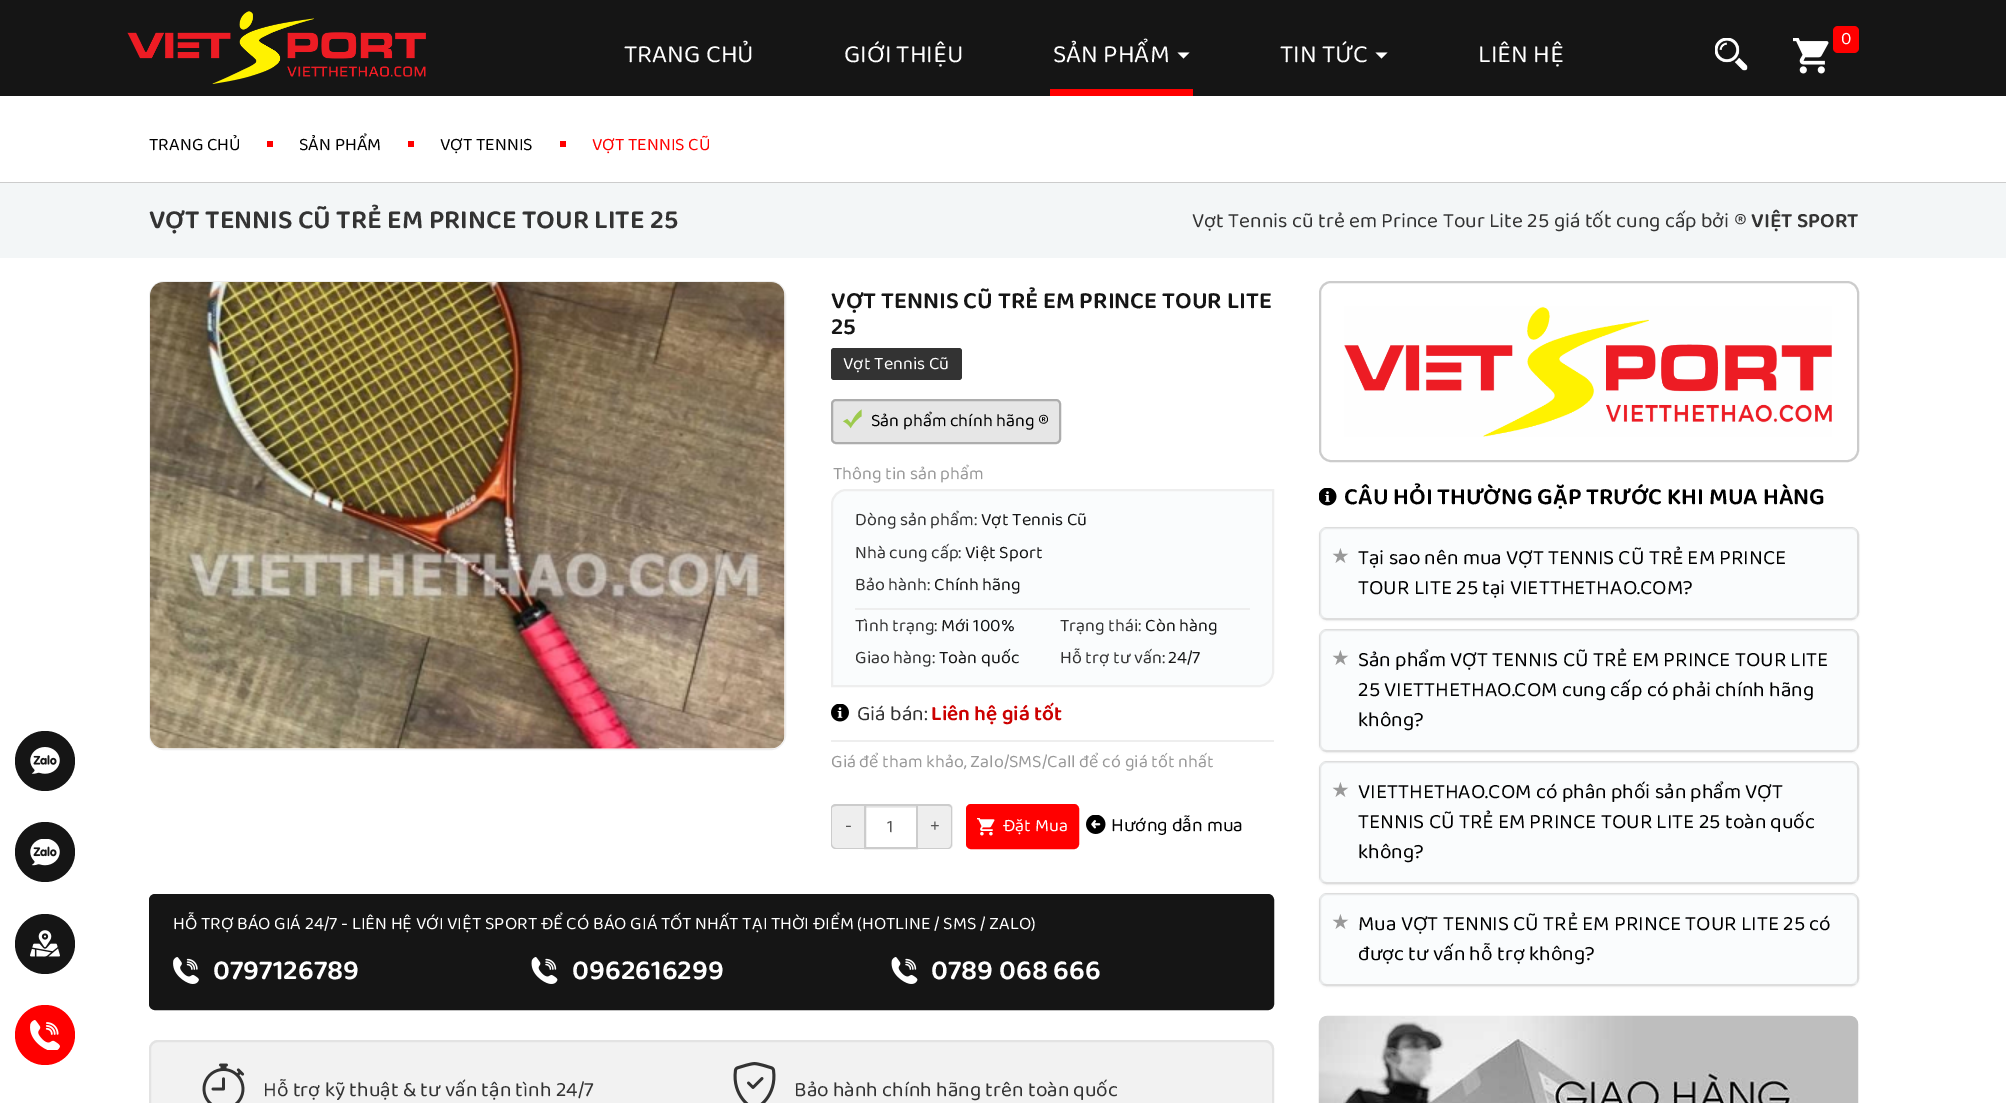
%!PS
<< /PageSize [2006 1103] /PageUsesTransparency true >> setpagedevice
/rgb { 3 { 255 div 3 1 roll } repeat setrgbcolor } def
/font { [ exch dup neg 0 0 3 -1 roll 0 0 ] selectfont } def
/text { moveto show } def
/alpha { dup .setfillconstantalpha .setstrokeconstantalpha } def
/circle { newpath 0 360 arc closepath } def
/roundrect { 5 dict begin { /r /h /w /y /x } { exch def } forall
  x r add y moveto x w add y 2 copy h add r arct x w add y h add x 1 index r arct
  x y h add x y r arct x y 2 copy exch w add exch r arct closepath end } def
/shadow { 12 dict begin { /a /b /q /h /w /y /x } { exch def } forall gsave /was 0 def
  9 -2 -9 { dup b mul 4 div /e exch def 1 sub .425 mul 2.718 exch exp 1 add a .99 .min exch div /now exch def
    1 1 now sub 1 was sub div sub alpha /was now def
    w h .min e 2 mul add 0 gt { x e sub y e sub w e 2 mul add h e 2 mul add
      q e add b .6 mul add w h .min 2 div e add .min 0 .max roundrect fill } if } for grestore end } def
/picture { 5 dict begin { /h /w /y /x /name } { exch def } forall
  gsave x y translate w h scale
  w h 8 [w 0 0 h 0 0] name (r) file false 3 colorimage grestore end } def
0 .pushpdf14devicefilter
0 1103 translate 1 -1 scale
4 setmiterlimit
255 255 255 rgb
0 0 2006 1103 rectfill
21 21 21 rgb
0 0 2006 96 rectfill
(img_01.rgb) 127 11 299 73 picture
255 255 255 rgb
1177.5 52.5 moveto 12 0 rlineto -6 6 rlineto closepath fill
255 0 0 rgb
1050 89 143 7 rectfill
255 255 255 rgb
1375.5 52.5 moveto 12 0 rlineto -6 6 rlineto closepath fill
(img_02.rgb) 1715 38 33 33 picture
(img_03.rgb) 1793 38 36 36 picture
255 0 0 rgb
1833 26 26 27 5 roundrect fill
21 21 21 rgb
45 761 30 circle fill
(img_04.rgb) 30 747 30 27 picture
45 852 30 circle fill
(img_05.rgb) 30 839 30 27 picture
45 944 30 circle fill
(img_06.rgb) 30 930 30 27 picture
255 0 0 rgb
45 1035 30 circle fill
(img_07.rgb) 30 1020 30 30 picture
204 204 204 rgb
0 182 2006 1 rectfill
255 0 0 rgb
267 141 6 6 rectfill
408 141 6 6 rectfill
560 141 6 6 rectfill
243 246 247 rgb
0 183 2006 75 rectfill
238 238 238 rgb
2 setlinewidth
150 282 635 467 14 roundrect stroke
255 255 255 rgb
150 282 635 467 14 roundrect fill
(img_08.rgb) 150 282 635 467 picture
51 51 51 rgb
831 348 131 32 3 roundrect fill
230 230 230 rgb
832 400 228 43 4 roundrect gsave fill grestore
173 173 173 rgb
stroke
(img_09.rgb) 842 409 20 20 picture
250 252 253 rgb
846 490 moveto 427 0 rlineto 0 182 rlineto 0 7.5 -6.5 14 -14 14 rcurveto -427 0 rlineto 0 -182 rlineto 0 -7.5 6.5 -14 14 -14 rcurveto closepath gsave fill grestore
238 238 238 rgb
stroke
855 608 395 2 rectfill
831 740 443 2 rectfill
(img_10.rgb) 831 704 18 18 picture
836 804 moveto 28 0 rlineto 0 45 rlineto -28 0 rlineto -3 0 -5 -2 -5 -5 rcurveto 0 -35 rlineto 0 -3 2 -5 5 -5 rcurveto closepath fill
204 204 204 rgb
836 804 moveto 28 0 rlineto 0 45 rlineto -28 0 rlineto -3 0 -5 -2 -5 -5 rcurveto 0 -36 rlineto 0 -2 2 -4 5 -4 rcurveto closepath 836 806 moveto 28 0 rlineto 0 42 rlineto -28 0 rlineto -2 0 -4 -2 -4 -4 rcurveto 0 -36 rlineto 0 -1 2 -2 4 -2 rcurveto closepath eofill
236 236 236 rgb
866 806 51 2 rectfill
204 204 204 rgb
865 805 52 43 rectstroke
238 238 238 rgb
918 804 moveto 30 0 rlineto 3 0 5 2 5 5 rcurveto 0 35 rlineto 0 3 -2 5 -5 5 rcurveto -30 0 rlineto closepath fill
204 204 204 rgb
918 804 moveto 30 0 rlineto 2 0 4 2 4 4 rcurveto 0 36 rlineto 0 3 -2 5 -4 5 rcurveto -30 0 rlineto closepath 918 806 moveto 30 0 rlineto 2 0 3 1 3 2 rcurveto 0 36 rlineto 0 2 -1 4 -3 4 rcurveto -30 0 rlineto closepath eofill
255 0 0 rgb
967 805 111 43 4 roundrect gsave fill grestore
stroke
(img_11.rgb) 977 818 18 18 picture
(img_12.rgb) 1086 815 20 19 picture
21 21 21 rgb
150 895 1123 114 5 roundrect gsave fill grestore
stroke
(img_13.rgb) 173 957 26 27 picture
(img_14.rgb) 531 957 27 27 picture
(img_14.rgb) 891 957 27 27 picture
242 242 242 rgb
149 1040 1125 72 9 roundrect fill
230 230 230 rgb
158 1042 moveto 1106 0 rlineto 5 0 8 4 8 8 rcurveto 0 -1 rlineto 0 -4 -4 -8 -8 -8 rcurveto -1106 0 rlineto -4 0 -8 4 -8 8 rcurveto 0 1 rlineto 0 -4 3 -8 8 -8 rcurveto closepath fill
227 227 227 rgb
150 1041 1123 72 8 roundrect stroke
(img_15.rgb) 202 1063 43 40 picture
(img_16.rgb) 733 1062 43 41 picture
204 204 204 rgb
1320 282 538 179 11 roundrect stroke
(img_17.rgb) 1344 306 488 131 picture
(img_18.rgb) 1319 488 18 18 picture
0 0 0 rgb
1319 528 540 93 8 1 0.05 shadow
255 255 255 rgb
1320 528 538 91 7 roundrect gsave fill grestore
221 221 221 rgb
stroke
0.48 alpha
245 249 250 rgb
1325 528 moveto 527 0 rlineto 3 0 5 2 5 5 rcurveto 0 85 rlineto -537 0 rlineto 0 -85 rlineto 0 -3 2 -5 5 -5 rcurveto closepath fill
1 alpha
0 0 0 rgb
1319 630 540 123 8 1 0.05 shadow
255 255 255 rgb
1320 630 538 121 7 roundrect gsave fill grestore
221 221 221 rgb
stroke
0.48 alpha
245 249 250 rgb
1325 630 moveto 527 0 rlineto 3 0 5 2 5 5 rcurveto 0 115 rlineto -537 0 rlineto 0 -115 rlineto 0 -3 2 -5 5 -5 rcurveto closepath fill
1 alpha
0 0 0 rgb
1319 762 540 123 8 1 0.05 shadow
255 255 255 rgb
1320 762 538 121 7 roundrect gsave fill grestore
221 221 221 rgb
stroke
0.48 alpha
245 249 250 rgb
1325 762 moveto 527 0 rlineto 3 0 5 2 5 5 rcurveto 0 115 rlineto -537 0 rlineto 0 -115 rlineto 0 -3 2 -5 5 -5 rcurveto closepath fill
1 alpha
0 0 0 rgb
1319 894 540 93 8 1 0.05 shadow
255 255 255 rgb
1320 894 538 91 7 roundrect gsave fill grestore
221 221 221 rgb
stroke
0.48 alpha
245 249 250 rgb
1325 894 moveto 527 0 rlineto 3 0 5 2 5 5 rcurveto 0 85 rlineto -537 0 rlineto 0 -85 rlineto 0 -3 2 -5 5 -5 rcurveto closepath fill
1 alpha
(img_19.rgb) 1318 1015 541 88 picture
/Baloo2-Regular 25.5 font
255 255 255 rgb
(TRANG CHỦ) 624 62 text
(GIỚI THIỆU) 844 62 text
(SẢN PHẨM) 1053 62 text
(TIN TỨC) 1280 62 text
(LIÊN HỆ) 1478 62 text
/Baloo2-Regular 18 font
(0) 1841 44 text
0 0 0 rgb
(TRANG CHỦ) 149 150 text
(SẢN PHẨM) 299 150 text
(VỢT TENNIS) 440 150 text
255 0 0 rgb
(VỢT TENNIS CŨ) 592 150 text
/Baloo2-SemiBold 27 font
51 51 51 rgb
(VỢT TENNIS CŨ TRẺ EM PRINCE TOUR LITE 25) 149 228 text
/Baloo2-Regular 21 font
(Vợt Tennis cũ trẻ em Prince Tour Lite 25 giá tốt cung cấp bởi ®) 1192 227 text
/Baloo2-SemiBold 21 font
(VIỆT SPORT) 1751 227 text
/Baloo2-SemiBold 24 font
21 21 21 rgb
(VỢT TENNIS CŨ TRẺ EM PRINCE TOUR LITE) 831 308 text
(25) 831 334 text
/Baloo2-Regular 18 font
255 255 255 rgb
(Vợt Tennis Cũ) 843 369 text
0 0 0 rgb
(Sản phẩm chính hãng ®) 871 426 text
153 153 153 rgb
(Thông tin sản phẩm) 833 479 text
51 51 51 rgb
(Dòng sản phẩm:) 855 525 text
21 21 21 rgb
(Vợt Tennis Cũ) 981 525 text
51 51 51 rgb
(Nhà cung cấp:) 855 558 text
21 21 21 rgb
(Việt Sport) 965 558 text
51 51 51 rgb
(Bảo hành:) 855 590 text
21 21 21 rgb
(Chính hãng) 934 590 text
51 51 51 rgb
(Tình trạng:) 855 631 text
21 21 21 rgb
(Mới 100%) 941 631 text
51 51 51 rgb
(Trạng thái:) 1060 631 text
21 21 21 rgb
(Còn hàng) 1145 631 text
51 51 51 rgb
(Giao hàng:) 855 663 text
21 21 21 rgb
(Toàn quốc) 939 663 text
51 51 51 rgb
(Hỗ trợ tư vấn:) 1060 663 text
21 21 21 rgb
(24/7) 1168 663 text
/Baloo2-Regular 21 font
51 51 51 rgb
(Giá bán:) 857 720 text
/Baloo2-SemiBold 21 font
204 0 0 rgb
(Liên hệ giá tốt) 931 720 text
/Baloo2-Regular 18 font
153 153 153 rgb
(Giá để tham khảo, Zalo/SMS/Call để có giá tốt nhất) 831 767 text
85 85 85 rgb
(-) 845 831 text
(1) 887 832 text
(+) 930 831 text
255 255 255 rgb
(Đặt Mua) 1003 831 text
/Baloo2-Regular 19.5 font
0 0 0 rgb
(Hướng dẫn mua) 1111 831 text
/Baloo2-Regular 18 font
255 255 255 rgb
(HỖ TRỢ BÁO GIÁ 24/7 - LIÊN HỆ VỚI VIỆT SPORT ĐỂ CÓ BÁO GIÁ TỐT NHẤT TẠI THỜI ĐIỂM \(HOTLINE / SMS / ZALO\)) 173 929 text
/Baloo2-SemiBold 28.5 font
(0797126789) 213 979 text
(0962616299) 572 979 text
(0789 068 666) 931 979 text
/Baloo2-Regular 21 font
51 51 51 rgb
(Hỗ trợ kỹ thuật & tư vấn tận tình 24/7) 263 1096 text
(Bảo hành chính hãng trên toàn quốc) 794 1096 text
/Baloo2-SemiBold 24 font
0 0 0 rgb
(CÂU HỎI THƯỜNG GẶP TRƯỚC KHI MUA HÀNG) 1344 504 text
/DejaVuSans-Regular 21 font
153 153 153 rgb
(★) 1331 563 text
/Baloo2-Regular 21 font
0 0 0 rgb
(Tại sao nên mua VỢT TENNIS CŨ TRẺ EM PRINCE) 1358 564 text
(TOUR LITE 25 tại VIETTHETHAO.COM?) 1358 594 text
/DejaVuSans-Regular 21 font
153 153 153 rgb
(★) 1331 665 text
/Baloo2-Regular 21 font
0 0 0 rgb
(Sản phẩm VỢT TENNIS CŨ TRẺ EM PRINCE TOUR LITE) 1358 666 text
(25 VIETTHETHAO.COM cung cấp có phải chính hãng) 1358 696 text
(không?) 1358 726 text
/DejaVuSans-Regular 21 font
153 153 153 rgb
(★) 1331 797 text
/Baloo2-Regular 21 font
0 0 0 rgb
(VIETTHETHAO.COM có phân phối sản phẩm VỢT) 1358 798 text
(TENNIS CŨ TRẺ EM PRINCE TOUR LITE 25 toàn quốc) 1358 828 text
(không?) 1358 858 text
/DejaVuSans-Regular 21 font
153 153 153 rgb
(★) 1331 929 text
/Baloo2-Regular 21 font
0 0 0 rgb
(Mua VỢT TENNIS CŨ TRẺ EM PRINCE TOUR LITE 25 có) 1358 930 text
(được tư vấn hỗ trợ không?) 1358 960 text
.poppdf14devicefilter showpage
